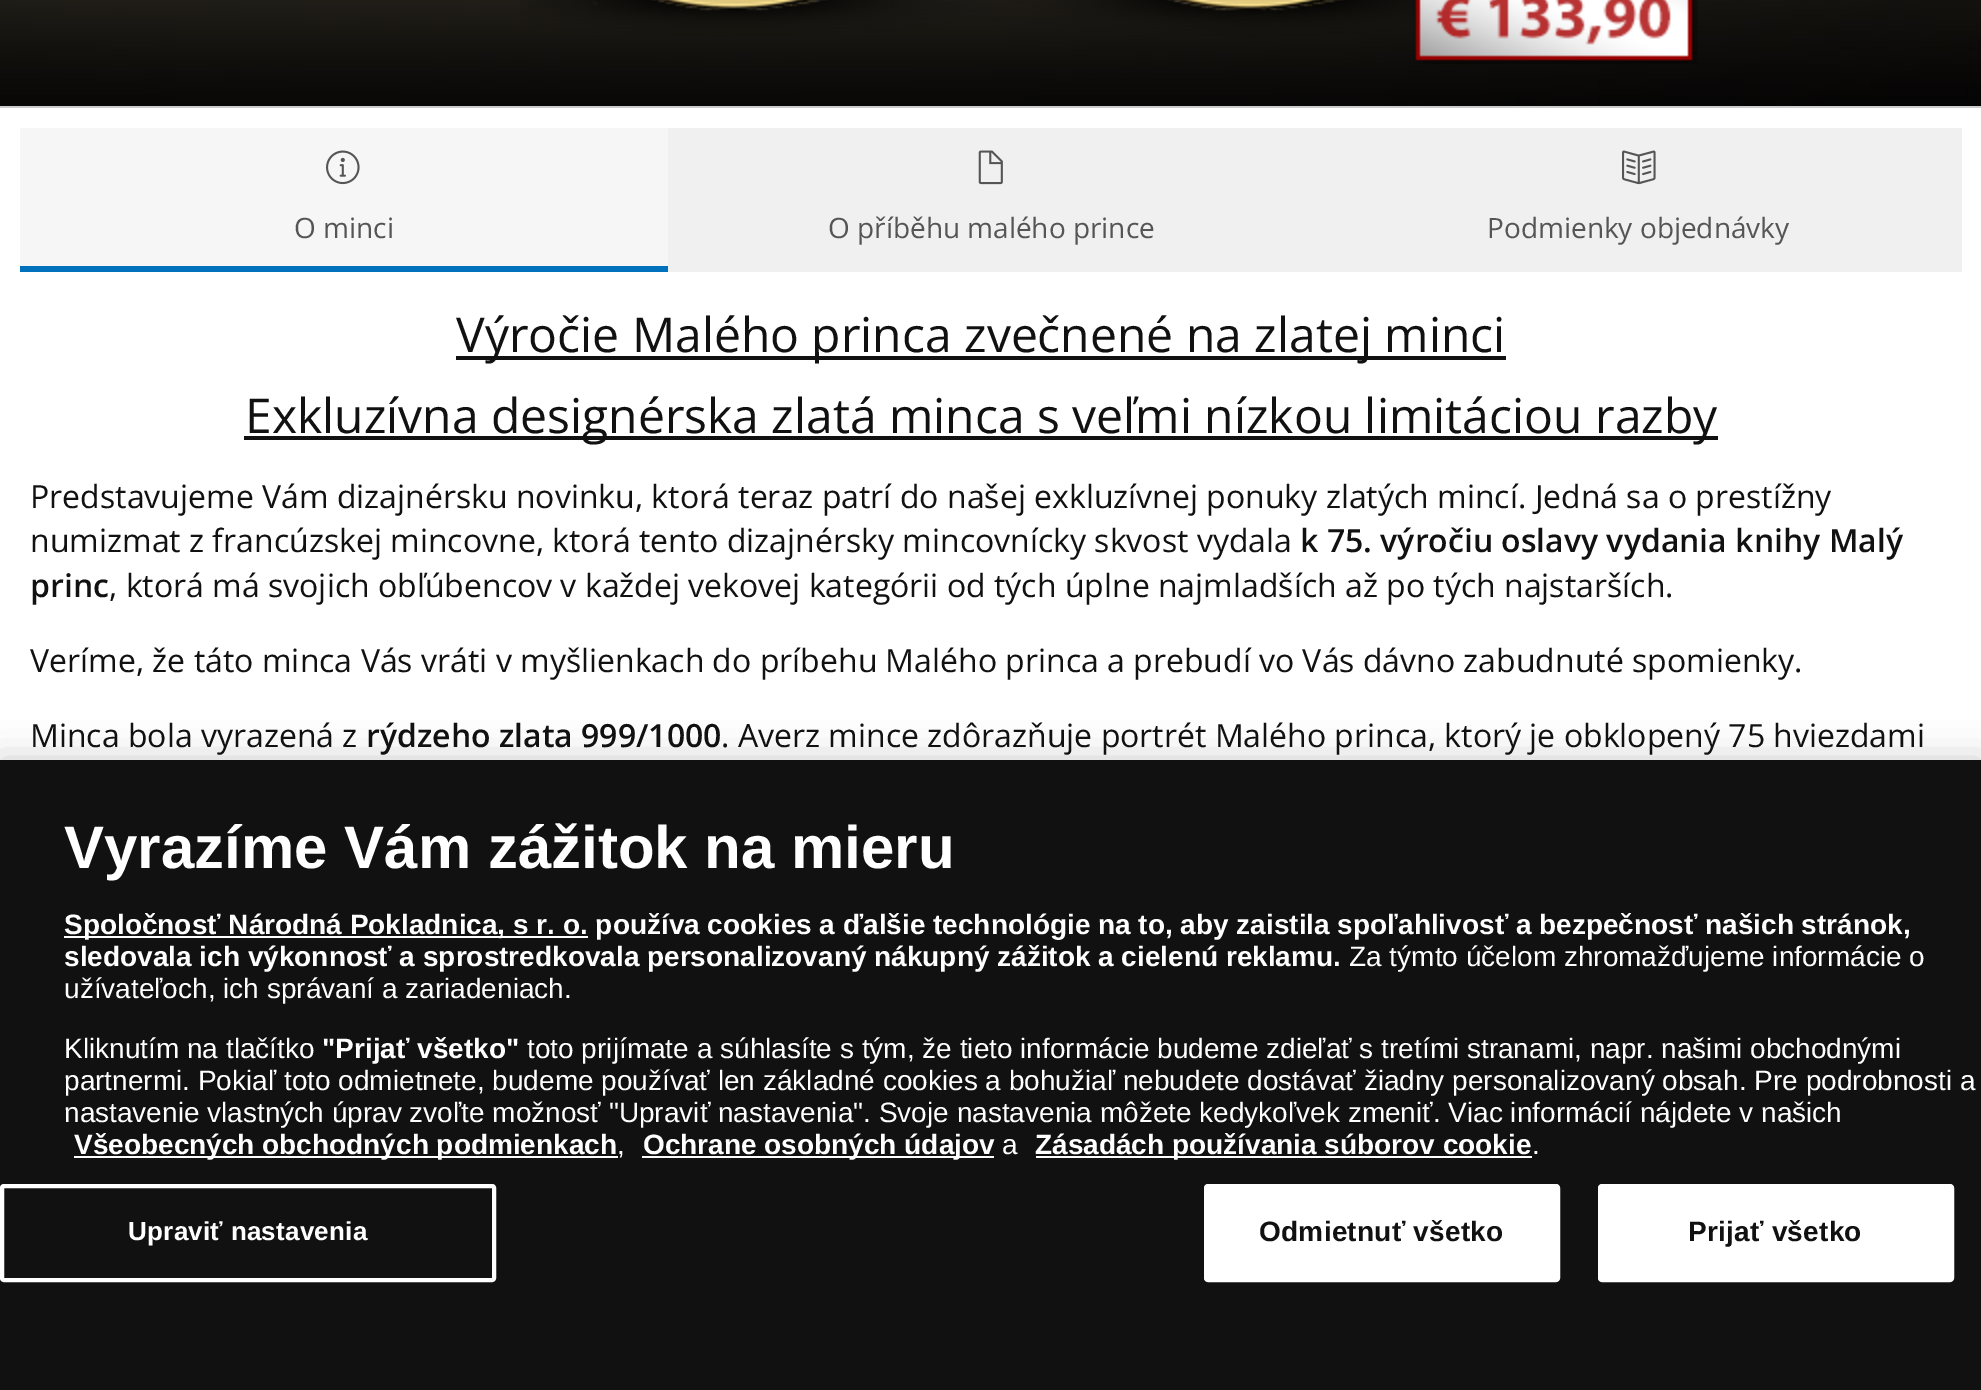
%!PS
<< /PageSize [1981 1390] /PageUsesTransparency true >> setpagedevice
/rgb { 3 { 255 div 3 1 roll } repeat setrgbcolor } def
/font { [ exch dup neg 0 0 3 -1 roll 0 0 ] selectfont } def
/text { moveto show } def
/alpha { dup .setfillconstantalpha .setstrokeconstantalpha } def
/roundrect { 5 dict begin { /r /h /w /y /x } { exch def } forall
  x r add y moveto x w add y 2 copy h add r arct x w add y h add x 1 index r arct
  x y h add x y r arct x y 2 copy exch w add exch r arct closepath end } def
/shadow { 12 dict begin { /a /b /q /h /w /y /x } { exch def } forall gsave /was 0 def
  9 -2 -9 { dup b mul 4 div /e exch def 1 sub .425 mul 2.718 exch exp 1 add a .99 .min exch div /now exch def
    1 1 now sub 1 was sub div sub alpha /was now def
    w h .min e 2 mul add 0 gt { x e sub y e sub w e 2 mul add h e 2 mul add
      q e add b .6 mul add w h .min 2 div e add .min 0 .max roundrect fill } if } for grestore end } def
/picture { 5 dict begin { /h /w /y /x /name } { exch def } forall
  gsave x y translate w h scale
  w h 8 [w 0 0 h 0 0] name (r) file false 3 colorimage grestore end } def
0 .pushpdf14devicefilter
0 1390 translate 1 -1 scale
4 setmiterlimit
255 255 255 rgb
0 0 1981 1390 rectfill
(img_01.rgb) 0 0 1981 106 picture
204 204 204 rgb
0 106 1981 2 rectfill
(img_02.rgb) 520 0 1178 64 picture
246 246 246 rgb
20 128 648 138 rectfill
(img_03.rgb) 326 150 34 35 picture
0 113 188 rgb
20 266 648 6 rectfill
240 240 240 rgb
668 128 1294 144 rectfill
(img_04.rgb) 978 150 25 35 picture
(img_05.rgb) 1622 150 34 35 picture
17 17 17 rgb
456 356 1050 4 rectfill
244 436 1474 4 rectfill
0 0 0 rgb
0 760 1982 630 0 18 0.2 shadow
17 17 17 rgb
0 760 1981 630 rectfill
255 255 255 rgb
64 936 524 2 rectfill
74 1156 544 2 rectfill
642 1156 352 2 rectfill
1036 1156 496 2 rectfill
4 setlinewidth
2 1186 492 94 2 roundrect stroke
1205 1185 354 96 3 roundrect gsave fill grestore
2 setlinewidth
stroke
1599 1185 354 96 3 roundrect gsave fill grestore
stroke
/OpenSans-Regular 28 font
85 85 85 rgb
(O minci) 294 238 text
(O příběhu malého prince) 828 238 text
(Podmienky objednávky) 1487 238 text
/OpenSans-Regular 48 font
17 17 17 rgb
(Výročie Malého princa zvečnené na zlatej minci) 456 352 text
(Exkluzívna designérska zlatá minca s veľmi nízkou limitáciou razby) 245 433 text
/OpenSans-Regular 32 font
(Predstavujeme Vám dizajnérsku novinku, ktorá teraz patrí do našej exkluzívnej ponuky zlatých mincí. Jedná sa o prestížny) 30 508 text
(numizmat z francúzskej mincovne, ktorá tento dizajnérsky mincovnícky skvost vydala) 30 552 text
/OpenSans-SemiBold 32 font
(k 75. výročiu oslavy vydania knihy Malý) 1300 552 text
(princ) 30 597 text
/OpenSans-Regular 32 font
(, ktorá má svojich obľúbencov v každej vekovej kategórii od tých úplne najmladších až po tých najstarších.) 109 597 text
(Veríme, že táto minca Vás vráti v myšlienkach do príbehu Malého princa a prebudí vo Vás dávno zabudnuté spomienky.) 30 672 text
(Minca bola vyrazená z) 30 747 text
/OpenSans-SemiBold 32 font
(rýdzeho zlata 999/1000) 366 747 text
/OpenSans-Regular 32 font
(. Averz mince zdôrazňuje portrét Malého princa, ktorý je obklopený 75 hviezdami) 721 747 text
/LiberationSans-Bold 60 font
255 255 255 rgb
(Vyrazíme Vám zážitok na mieru) 64 868 text
/LiberationSans-Bold 28 font
(Spoločnosť Národná Pokladnica, s r. o. používa cookies a ďalšie technológie na to, aby zaistila spoľahlivosť a bezpečnosť našich stránok,) 64 934 text
(sledovala ich výkonnosť a sprostredkovala personalizovaný nákupný zážitok a cielenú reklamu.) 64 966 text
/LiberationSans-Regular 28 font
(Za týmto účelom zhromažďujeme informácie o) 1349 966 text
(užívateľoch, ich správaní a zariadeniach.) 64 998 text
(Kliknutím na tlačítko) 64 1058 text
/LiberationSans-Bold 28 font
("Prijať všetko") 322 1058 text
/LiberationSans-Regular 28 font
(toto prijímate a súhlasíte s tým, že tieto informácie budeme zdieľať s tretími stranami, napr. našimi obchodnými) 527 1058 text
(partnermi. Pokiaľ toto odmietnete, budeme používať len základné cookies a bohužiaľ nebudete dostávať žiadny personalizovaný obsah. Pre podrobnosti a) 64 1090 text
(nastavenie vlastných úprav zvoľte možnosť "Upraviť nastavenia". Svoje nastavenia môžete kedykoľvek zmeniť. Viac informácií nájdete v našich) 64 1122 text
/LiberationSans-Bold 28 font
(Všeobecných obchodných podmienkach) 74 1154 text
/LiberationSans-Regular 28 font
(,) 617 1154 text
/LiberationSans-Bold 28 font
(Ochrane osobných údajov) 643 1154 text
/LiberationSans-Regular 28 font
(a) 1002 1154 text
/LiberationSans-Bold 28 font
(Zásadách používania súborov cookie) 1035 1154 text
/LiberationSans-Regular 28 font
(.) 1532 1154 text
/LiberationSans-Bold 26 font
128 1240 moveto 0.25 0 (Upraviť nastavenia) ashow
/LiberationSans-Bold 28 font
17 17 17 rgb
1259 1241 moveto 0.25 0 (Odmietnuť všetko) ashow
1688 1241 moveto 0.25 0 (Prijať všetko) ashow
.poppdf14devicefilter showpage
